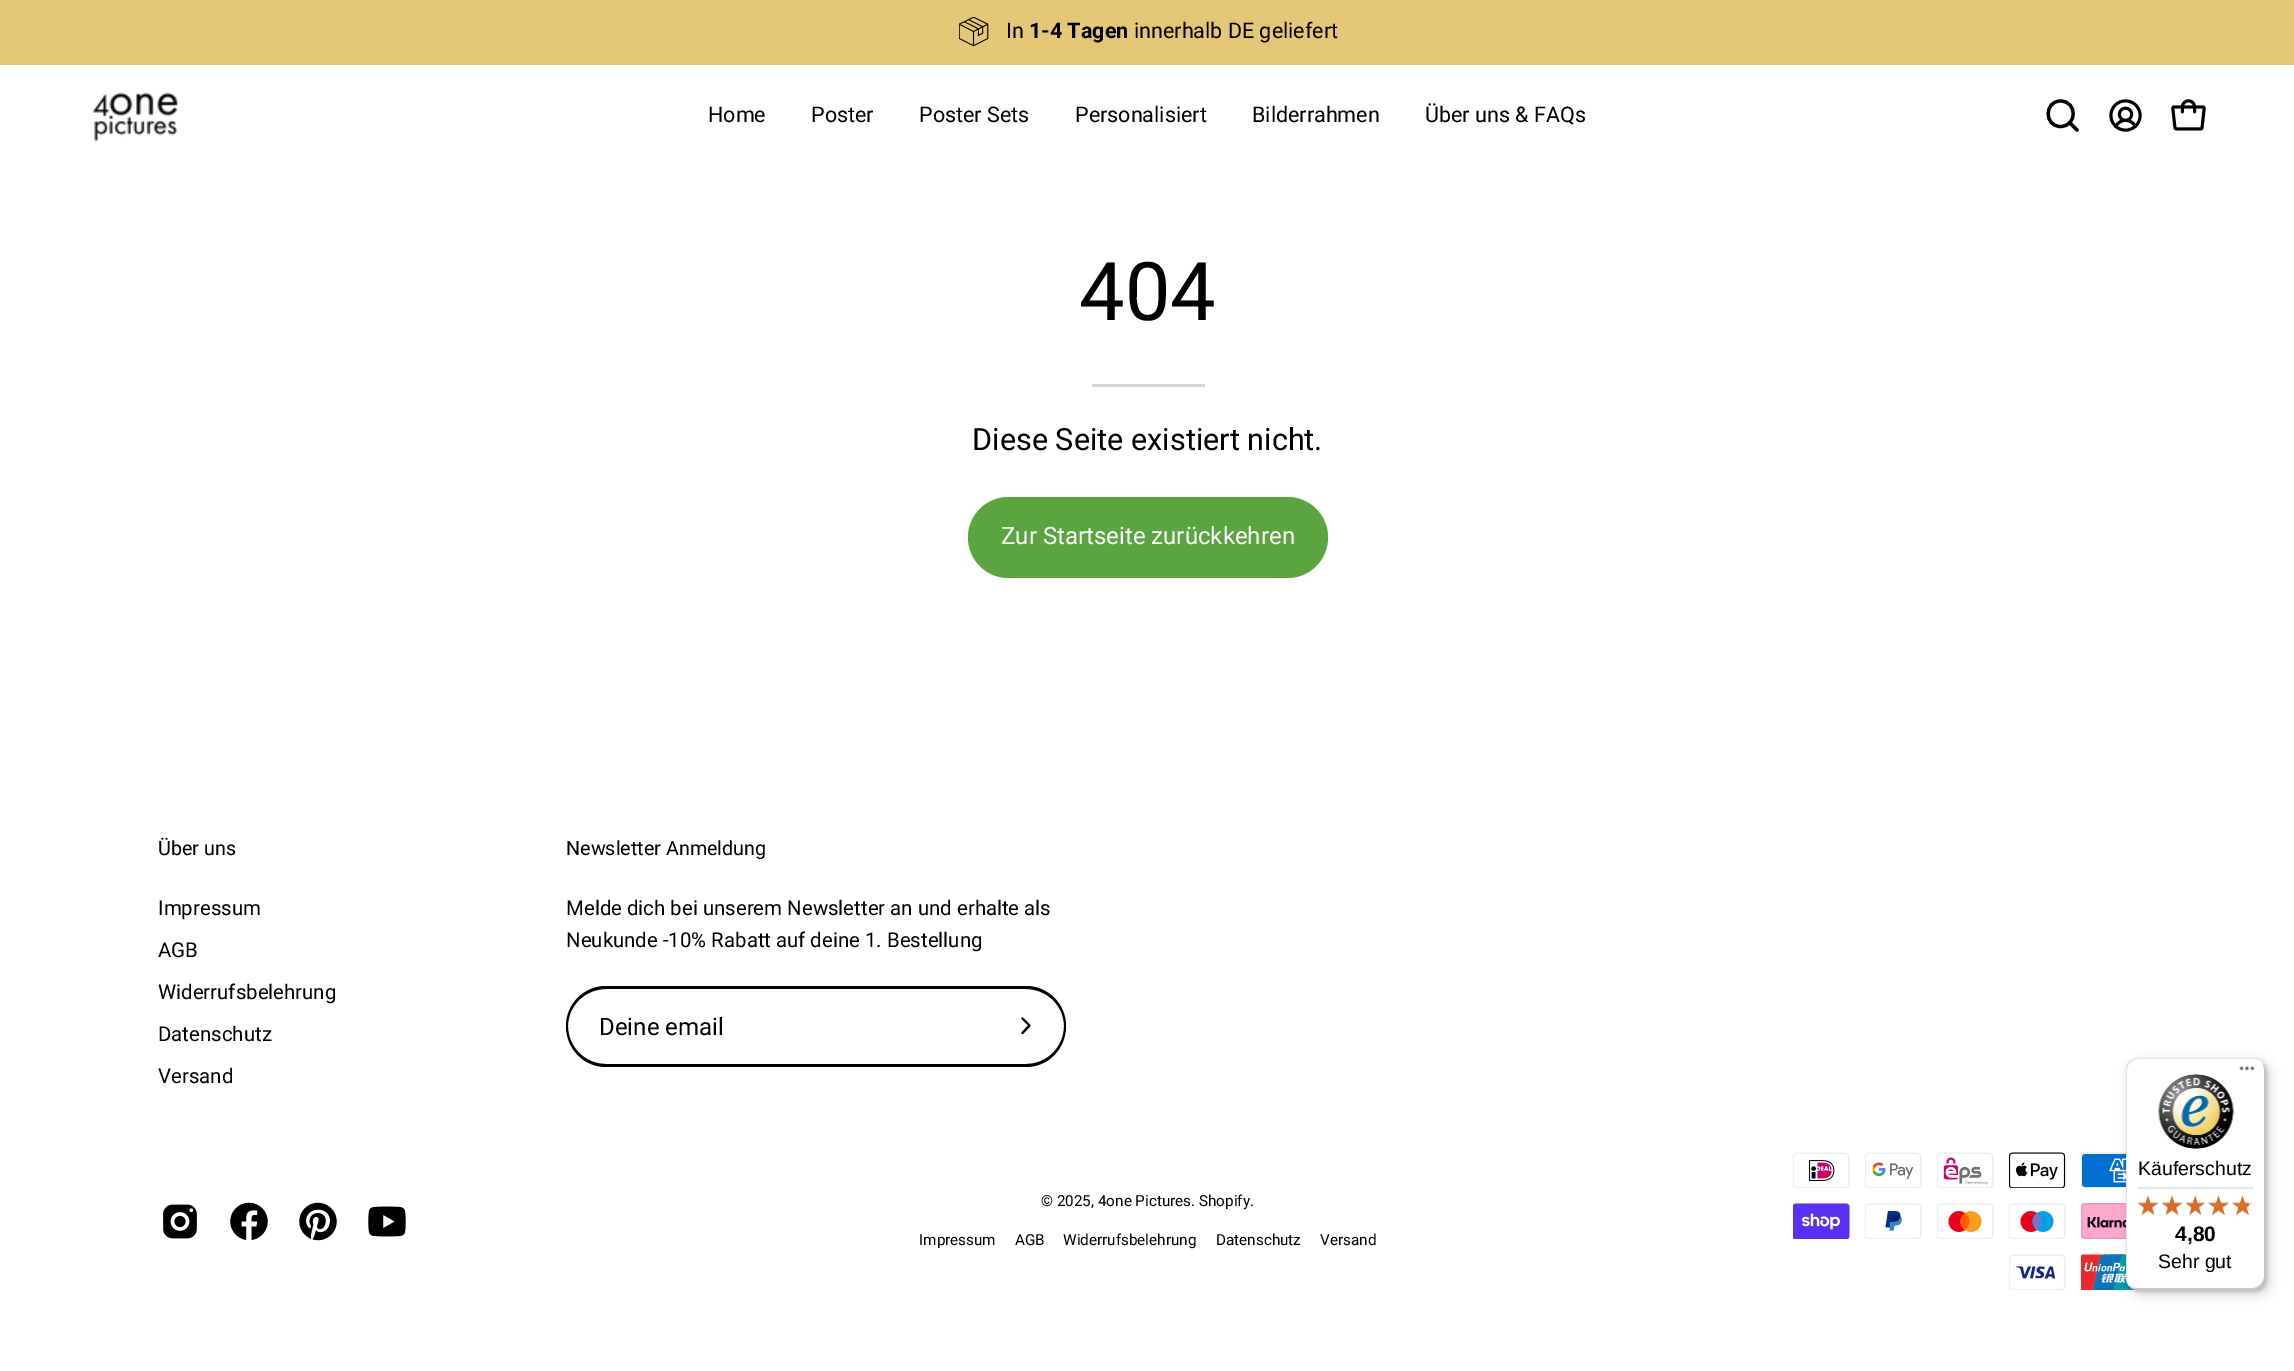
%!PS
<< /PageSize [2294 1371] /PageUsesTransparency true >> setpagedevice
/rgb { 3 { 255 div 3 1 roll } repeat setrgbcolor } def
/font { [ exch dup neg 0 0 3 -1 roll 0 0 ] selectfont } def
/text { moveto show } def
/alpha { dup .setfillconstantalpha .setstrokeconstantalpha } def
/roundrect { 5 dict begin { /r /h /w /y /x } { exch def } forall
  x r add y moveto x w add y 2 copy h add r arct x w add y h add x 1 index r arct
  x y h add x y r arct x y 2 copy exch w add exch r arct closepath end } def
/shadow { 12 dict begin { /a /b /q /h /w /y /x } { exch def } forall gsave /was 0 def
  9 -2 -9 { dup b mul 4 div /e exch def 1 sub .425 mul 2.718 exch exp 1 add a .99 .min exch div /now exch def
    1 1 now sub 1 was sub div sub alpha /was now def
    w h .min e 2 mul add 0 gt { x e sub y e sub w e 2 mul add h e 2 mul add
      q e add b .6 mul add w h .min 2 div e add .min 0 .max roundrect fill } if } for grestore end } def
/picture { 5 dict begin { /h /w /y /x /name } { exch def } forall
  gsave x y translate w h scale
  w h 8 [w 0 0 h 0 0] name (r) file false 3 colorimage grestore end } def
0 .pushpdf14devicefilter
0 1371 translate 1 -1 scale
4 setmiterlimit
255 255 255 rgb
0 0 2294 1371 rectfill
230 199 119 rgb
0 0 2294 65 rectfill
(img_01.rgb) 959 17 30 30 picture
(img_02.rgb) 92 92 87 50 picture
0 0 0 rgb
3.2 setlinewidth
1 setlinecap
1 setlinejoin
2060.5 126.5 moveto 17 0 17 -25.5 0 -25.5 rcurveto -16.5 0 -16.5 25.5 0 25.5 rcurveto closepath 2069.5 122.5 moveto 7.5 7.5 rlineto stroke
(img_03.rgb) 2109 99 33 33 picture
(img_04.rgb) 2171 99 35 32 picture
gsave
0 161 moveto 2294 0 rlineto 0 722 rlineto -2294 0 rlineto closepath 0 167 moveto 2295 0 rlineto 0 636 rlineto -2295 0 rlineto closepath eoclip newpath
255 255 255 rgb
15 219 2265 606 0 19 1 shadow
grestore
211 211 211 rgb
1092 384 113 3 rectfill
90 165 64 rgb
968 497 360 81 40.5 roundrect fill
0 0 0 rgb
606 986 moveto 380 0 rlineto 0 81 rlineto -380 0 rlineto -22 0 -40 -18 -40 -41 rcurveto 0 -22 18 -40 40 -40 rcurveto closepath 606 989 moveto 380 0 rlineto 0 75 rlineto -380 0 rlineto -21 0 -38 -17 -38 -38 rcurveto 0 -20 17 -37 38 -37 rcurveto closepath eofill
986 986 moveto 40 0 rlineto 22 0 40 18 40 40 rcurveto 0 23 -18 41 -40 41 rcurveto -40 0 rlineto closepath 986 989 moveto 40 0 rlineto 21 0 38 17 38 37 rcurveto 0 21 -17 38 -38 38 rcurveto -40 0 rlineto closepath eofill
2.1 setlinewidth
1022.5 1018.5 moveto 7 7 rlineto -7 7.5 rlineto stroke
(img_05.rgb) 163 1204 34 35 picture
(img_06.rgb) 230 1202 38 38 picture
(img_07.rgb) 299 1202 38 39 picture
(img_08.rgb) 368 1206 38 31 picture
(img_09.rgb) 1793 1152 57 36 picture
(img_10.rgb) 1865 1152 57 36 picture
(img_11.rgb) 1937 1152 57 36 picture
(img_12.rgb) 2009 1152 57 36 picture
(img_13.rgb) 2081 1152 45 36 picture
(img_14.rgb) 1793 1203 57 36 picture
(img_15.rgb) 1865 1203 57 36 picture
(img_16.rgb) 1937 1203 57 36 picture
(img_17.rgb) 2009 1203 57 36 picture
(img_18.rgb) 2081 1203 45 36 picture
(img_19.rgb) 2009 1254 57 36 picture
(img_20.rgb) 2081 1254 57 36 picture
2130 1062 140 233 12 6 0.15 shadow
2127 1059 140 233 12 1.5 0.15 shadow
255 255 255 rgb
2126 1058 139 232 12 roundrect fill
0.1 alpha
0 0 0 rgb
2139 1059 moveto 115 0 rlineto 3 0 5 1 7 2 rcurveto -2 -2 -5 -3 -8 -3 rcurveto -115 0 rlineto -7 0 -12 5 -12 12 rcurveto 0 208 rlineto 0 2 1 5 2 7 rcurveto -1 -5 rlineto 0 -209 rlineto 0 -7 5 -12 12 -12 rcurveto closepath fill
0.2 alpha
2129 1286 moveto 2 2 5 4 9 4 rcurveto 115 0 rlineto 7 0 12 -5 12 -12 rcurveto 0 -208 rlineto 0 -2 -1 -5 -2 -6 rcurveto 1 4 rlineto 0 208 rlineto 0 7 -6 12 -12 12 rcurveto -116 0 rlineto -3 0 -5 -1 -7 -2 rcurveto closepath fill
50 50 50 rgb
2130 1287 moveto 2 2 5 3 8 3 rcurveto 115 0 rlineto 7 0 12 -5 12 -12 rcurveto 0 -208 rlineto 0 -3 -1 -6 -3 -8 rcurveto 1 2 2 4 2 7 rcurveto 0 208 rlineto 0 7 -5 12 -12 12 rcurveto -115 0 rlineto -3 0 -5 -1 -7 -2 rcurveto closepath fill
0.3 alpha
255 255 255 rgb
2130 1287 moveto 2 2 5 3 8 3 rcurveto 115 0 rlineto 7 0 12 -5 12 -12 rcurveto 0 -208 rlineto 0 -3 -1 -6 -3 -8 rcurveto 1 2 2 4 2 7 rcurveto 0 208 rlineto 0 7 -5 12 -12 12 rcurveto -115 0 rlineto -3 0 -5 -1 -7 -2 rcurveto closepath fill
1 alpha
(img_21.rgb) 2239 1066 16 5 picture
(img_22.rgb) 2158 1074 76 75 picture
229 229 229 rgb
2138 1187 115 2 rectfill
(img_23.rgb) 2138 1196 20 19 picture
(img_24.rgb) 2162 1195 20 20 picture
(img_25.rgb) 2186 1195 19 20 picture
(img_26.rgb) 2208 1195 21 20 picture
(img_27.rgb) 2232 1196 21 19 picture
(img_28.rgb) 2138 1196 20 19 picture
(img_29.rgb) 2162 1195 20 20 picture
(img_30.rgb) 2186 1195 19 20 picture
(img_31.rgb) 2208 1195 21 20 picture
(img_32.rgb) 2232 1196 17 19 picture
/Roboto-Regular 21.5 font
0 0 0 rgb
(In) 1006 38 text
/Roboto-Bold 21.5 font
(1-4 Tagen) 1029 38 text
/Roboto-Regular 21.5 font
(innerhalb DE geliefert) 1134 38 text
(Home) 708 122 text
(Poster) 811 122 text
(Poster Sets) 919 122 text
(Personalisiert) 1075 122 text
(Bilderrahmen) 1252 122 text
(Über uns & FAQs) 1425 122 text
/Roboto-Regular 81 font
(404) 1079 320 text
/Roboto-Regular 30.6 font
(Diese Seite existiert nicht.) 972 450 text
/Roboto-Regular 24 font
255 255 255 rgb
(Zur Startseite zurückkehren) 1001 544 text
/Roboto-Regular 19.75 font
0 0 0 rgb
(Über uns) 158 855 text
/Roboto-Regular 20.4 font
(Impressum) 158 915 text
(AGB) 158 957 text
(Widerrufsbelehrung) 158 999 text
(Datenschutz) 158 1041 text
(Versand) 158 1083 text
/Roboto-Regular 19.75 font
(Newsletter Anmeldung) 566 855 text
/Roboto-Regular 20.4 font
(Melde dich bei unserem Newsletter an und erhalte als) 566 915 text
(Neukunde -10% Rabatt auf deine 1. Bestellung) 566 947 text
/Roboto-Regular 24 font
(Deine email) 599 1035 text
/Roboto-Regular 15.25 font
(© 2025, 4one Pictures. Shopify.) 1041 1206 text
(Impressum) 919 1245 text
(AGB) 1015 1245 text
(Widerrufsbelehrung) 1063 1245 text
(Datenschutz) 1216 1245 text
(Versand) 1320 1245 text
/LiberationSans-Regular 19.5 font
(Käuferschutz) 2138 1175 text
/LiberationSans-Bold 21 font
(4,80) 2175 1241 text
/LiberationSans-Regular 19.5 font
(Sehr gut) 2158 1268 text
.poppdf14devicefilter showpage
